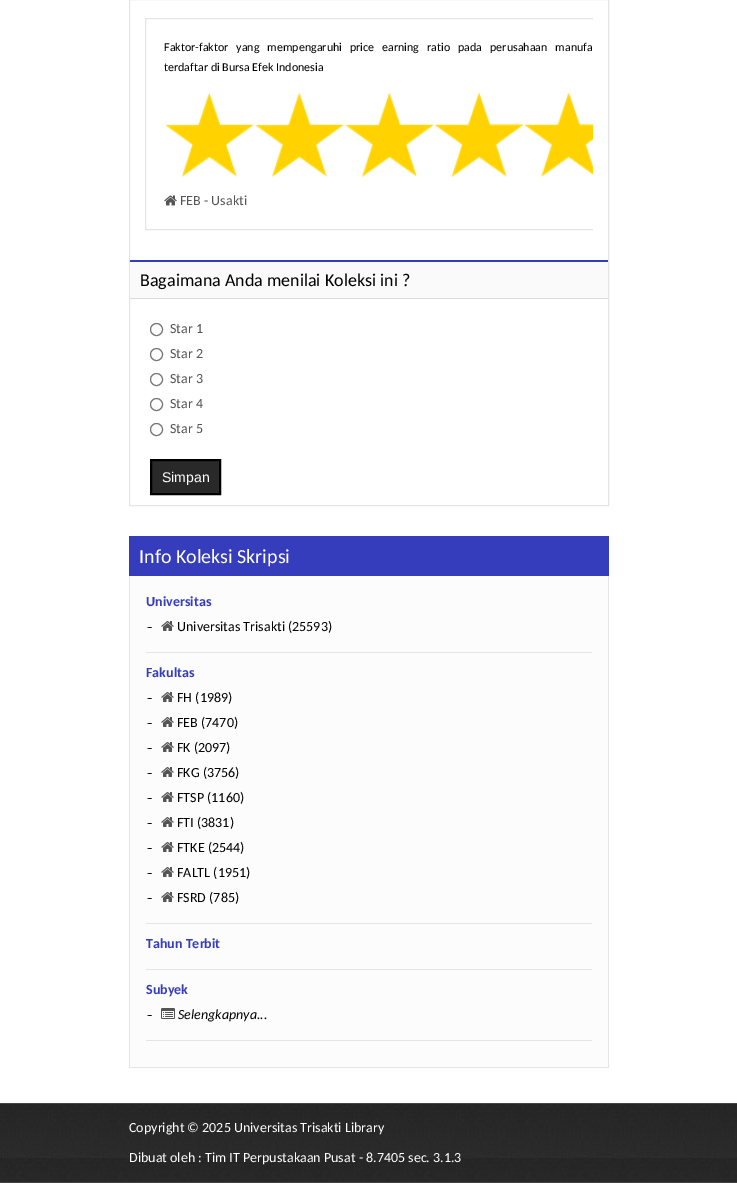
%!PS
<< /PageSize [737 1183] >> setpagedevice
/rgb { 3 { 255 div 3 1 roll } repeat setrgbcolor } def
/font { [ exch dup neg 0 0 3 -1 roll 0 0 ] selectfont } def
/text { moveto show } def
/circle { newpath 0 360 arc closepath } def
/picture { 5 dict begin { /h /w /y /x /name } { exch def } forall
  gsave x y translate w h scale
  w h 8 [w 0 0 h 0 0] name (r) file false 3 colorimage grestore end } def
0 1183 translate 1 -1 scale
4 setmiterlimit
255 255 255 rgb
0 0 737 1183 rectfill
229 229 229 rgb
129.5 -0.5 479 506 rectstroke
gsave
145 18 448 227 rectclip
145.5 18.5 485 211 rectstroke
grestore
(img_01.rgb) 165 92 428 86 picture
(img_02.rgb) 164 195 13 11 picture
54 61 188 rgb
130 260 478 2 rectfill
250 250 250 rgb
130 262 478 36 rectfill
220 220 220 rgb
130 298 478 1 rectfill
118 118 118 rgb
156.5 329.5 6 circle stroke
156.5 354.5 6 circle stroke
156.5 379.5 6 circle stroke
156.5 404.5 6 circle stroke
156.5 429.5 6 circle stroke
41 41 41 rgb
151 460 moveto 69 0 rlineto 0 34 rlineto -69 0 rlineto closepath gsave fill grestore
0 0 0 rgb
2 setlinewidth
stroke
54 61 188 rgb
129 536 480 40 rectfill
252 252 252 rgb
130 576 478 491 rectfill
229 229 229 rgb
608 576 1 492 rectfill
129 1067 480 1 rectfill
129 576 1 492 rectfill
146 652 446 1 rectfill
(img_03.rgb) 147 627 5 1 picture
(img_04.rgb) 161 621 13 10 picture
146 923 446 1 rectfill
(img_03.rgb) 147 698 5 1 picture
(img_04.rgb) 161 692 13 10 picture
(img_03.rgb) 147 723 5 1 picture
(img_04.rgb) 161 717 13 10 picture
(img_03.rgb) 147 748 5 1 picture
(img_04.rgb) 161 742 13 10 picture
(img_03.rgb) 147 773 5 1 picture
(img_04.rgb) 161 767 13 10 picture
(img_03.rgb) 147 798 5 1 picture
(img_04.rgb) 161 792 13 10 picture
(img_03.rgb) 147 823 5 1 picture
(img_04.rgb) 161 817 13 10 picture
(img_03.rgb) 147 848 5 1 picture
(img_04.rgb) 161 842 13 10 picture
(img_03.rgb) 147 873 5 1 picture
(img_04.rgb) 161 867 13 10 picture
(img_03.rgb) 147 898 5 1 picture
(img_04.rgb) 161 892 13 10 picture
146 969 446 1 rectfill
146 1040 446 1 rectfill
(img_03.rgb) 147 1015 5 1 picture
(img_05.rgb) 161 1008 14 11 picture
(img_06.rgb) 0 1104 737 78 picture
67 67 67 rgb
0 1103 737 1 rectfill
0 1182 737 1 rectfill
/Carlito-Regular 12 font
0 0 0 rgb
164 51 moveto 5.25 0 32 (Faktor-faktor yang mempengaruhi price earning ratio pada perusahaan manufa) widthshow
(terdaftar di Bursa Efek Indonesia) 164 71 text
/Carlito-Regular 14 font
85 85 85 rgb
(FEB - Usakti) 180 205 text
/Carlito-Regular 18 font
0 0 0 rgb
(Bagaimana Anda menilai Koleksi ini ?) 140 286 text
/Carlito-Regular 14 font
85 85 85 rgb
(Star 1) 170 333 text
(Star 2) 170 358 text
(Star 3) 170 383 text
(Star 4) 170 408 text
(Star 5) 170 433 text
/LiberationSans-Regular 14 font
254 254 254 rgb
(Simpan) 162 482 text
/Carlito-Regular 20 font
(Info Koleksi Skripsi) 139 563 text
/Carlito-Bold 14 font
54 61 188 rgb
(Universitas) 146 606 text
/Carlito-Regular 14 font
0 0 0 rgb
(Universitas Trisakti \(25593\)) 177 631 text
/Carlito-Bold 14 font
54 61 188 rgb
(Fakultas) 146 677 text
/Carlito-Regular 14 font
0 0 0 rgb
(FH \(1989\)) 177 702 text
(FEB \(7470\)) 177 727 text
(FK \(2097\)) 177 752 text
(FKG \(3756\)) 177 777 text
(FTSP \(1160\)) 177 802 text
(FTI \(3831\)) 177 827 text
(FTKE \(2544\)) 177 852 text
(FALTL \(1951\)) 177 877 text
(FSRD \(785\)) 177 902 text
/Carlito-Bold 14 font
54 61 188 rgb
(Tahun Terbit) 146 948 text
(Subyek) 146 994 text
/Carlito-Italic 14 font
0 0 0 rgb
(Selengkapnya...) 178 1019 text
/Carlito-Regular 14 font
254 254 254 rgb
(Copyright © 2025 Universitas Trisakti Library) 129 1132 text
(Dibuat oleh : Tim IT Perpustakaan Pusat - 8.7405 sec. 3.1.3) 129 1162 text
showpage
